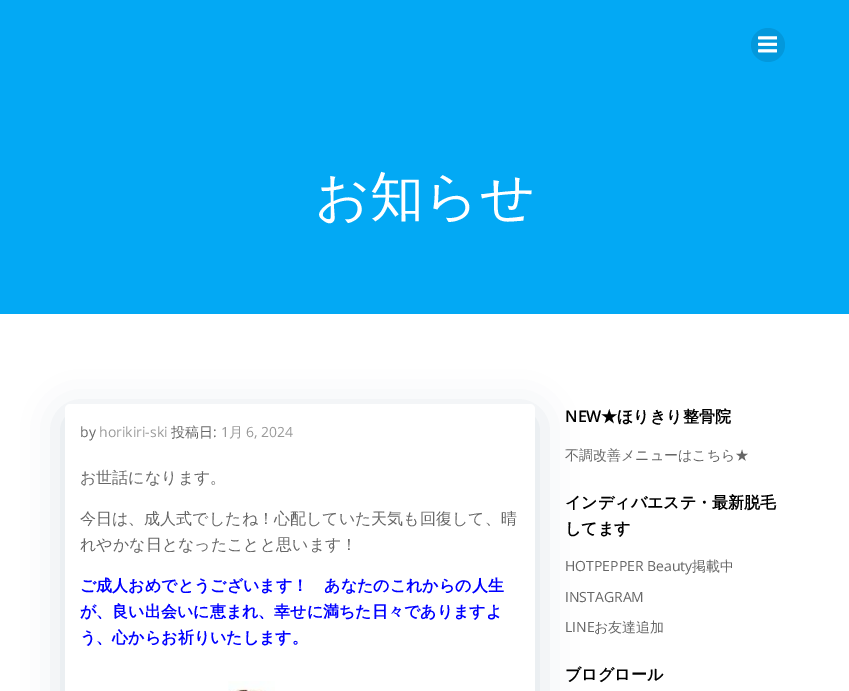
%!PS
<< /PageSize [849 691] /PageUsesTransparency true >> setpagedevice
/rgb { 3 { 255 div 3 1 roll } repeat setrgbcolor } def
/font { [ exch dup neg 0 0 3 -1 roll 0 0 ] selectfont } def
/text { moveto show } def
/alpha { dup .setfillconstantalpha .setstrokeconstantalpha } def
/circle { newpath 0 360 arc closepath } def
/roundrect { 5 dict begin { /r /h /w /y /x } { exch def } forall
  x r add y moveto x w add y 2 copy h add r arct x w add y h add x 1 index r arct
  x y h add x y r arct x y 2 copy exch w add exch r arct closepath end } def
/shadow { 12 dict begin { /a /b /q /h /w /y /x } { exch def } forall gsave /was 0 def
  9 -2 -9 { dup b mul 4 div /e exch def 1 sub .425 mul 2.718 exch exp 1 add a .99 .min exch div /now exch def
    1 1 now sub 1 was sub div sub alpha /was now def
    w h .min e 2 mul add 0 gt { x e sub y e sub w e 2 mul add h e 2 mul add
      q e add b .6 mul add w h .min 2 div e add .min 0 .max roundrect fill } if } for grestore end } def
/picture { 5 dict begin { /h /w /y /x /name } { exch def } forall
  gsave x y translate w h scale
  w h 8 [w 0 0 h 0 0] name (r) file false 3 colorimage grestore end } def
0 .pushpdf14devicefilter
0 691 translate 1 -1 scale
4 setmiterlimit
255 255 255 rgb
0 0 849 691 rectfill
3 169 244 rgb
0 0 849 314 rectfill
3 152 220 rgb
768 45 17 circle fill
(img_01.rgb) 758 36 19 17 picture
1 51 74 rgb
65 414 470 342 5 20 0.15 shadow
255 255 255 rgb
65 404 470 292 5 roundrect fill
(img_02.rgb) 228 681 47 10 picture
/WenQuanYiZenHei-Medium 54 font
(お知らせ) 315 215 text
/OpenSans-Regular 14 font
102 102 102 rgb
(by) 80 437 text
153 153 153 rgb
(horikiri-ski) 99 437 text
/WenQuanYiZenHei-Medium 14 font
102 102 102 rgb
(投稿日) 171 437 text
/OpenSans-Regular 14 font
(:) 213 437 text
153 153 153 rgb
(1) 221 437 text
/WenQuanYiZenHei-Medium 14 font
(月) 229 437 text
/OpenSans-Regular 14 font
(6, 2024) 246 437 text
/WenQuanYiZenHei-Medium 16 font
102 102 102 rgb
(お世話になります。) 80 483 text
(今日は、成人式でしたね！心配していた天気も回復して、晴) 80 524 text
(れやかな日となったことと思います！) 80 550 text
/WenQuanYiZenHei-Bold 16 font
0 0 255 rgb
(ご成人おめでとうございます！　あなたのこれからの人生) 80 591 text
(が、良い出会いに恵まれ、幸せに満ちた日々でありますよ) 80 617 text
(う、心からお祈りいたします。) 80 643 text
/OpenSans-SemiBold 16 font
0 0 0 rgb
(NEW) 565 422 text
/WenQuanYiZenHei-Bold 16 font
(★ほりきり整骨院) 601 422 text
/WenQuanYiZenHei-Medium 14 font
102 102 102 rgb
(不調改善メニューはこちら★) 565 460 text
/WenQuanYiZenHei-Bold 16 font
0 0 0 rgb
(インディバエステ・最新脱毛) 565 508 text
(してます) 565 534 text
/OpenSans-Regular 14 font
102 102 102 rgb
(HOTPEPPER Beauty) 565 571 text
/WenQuanYiZenHei-Medium 14 font
(掲載中) 692 571 text
/OpenSans-Regular 14 font
(INSTAGRAM) 565 602 text
(LINE) 565 632 text
/WenQuanYiZenHei-Medium 14 font
(お友達追加) 594 632 text
/WenQuanYiZenHei-Bold 16 font
0 0 0 rgb
(ブログロール) 565 680 text
.poppdf14devicefilter showpage
